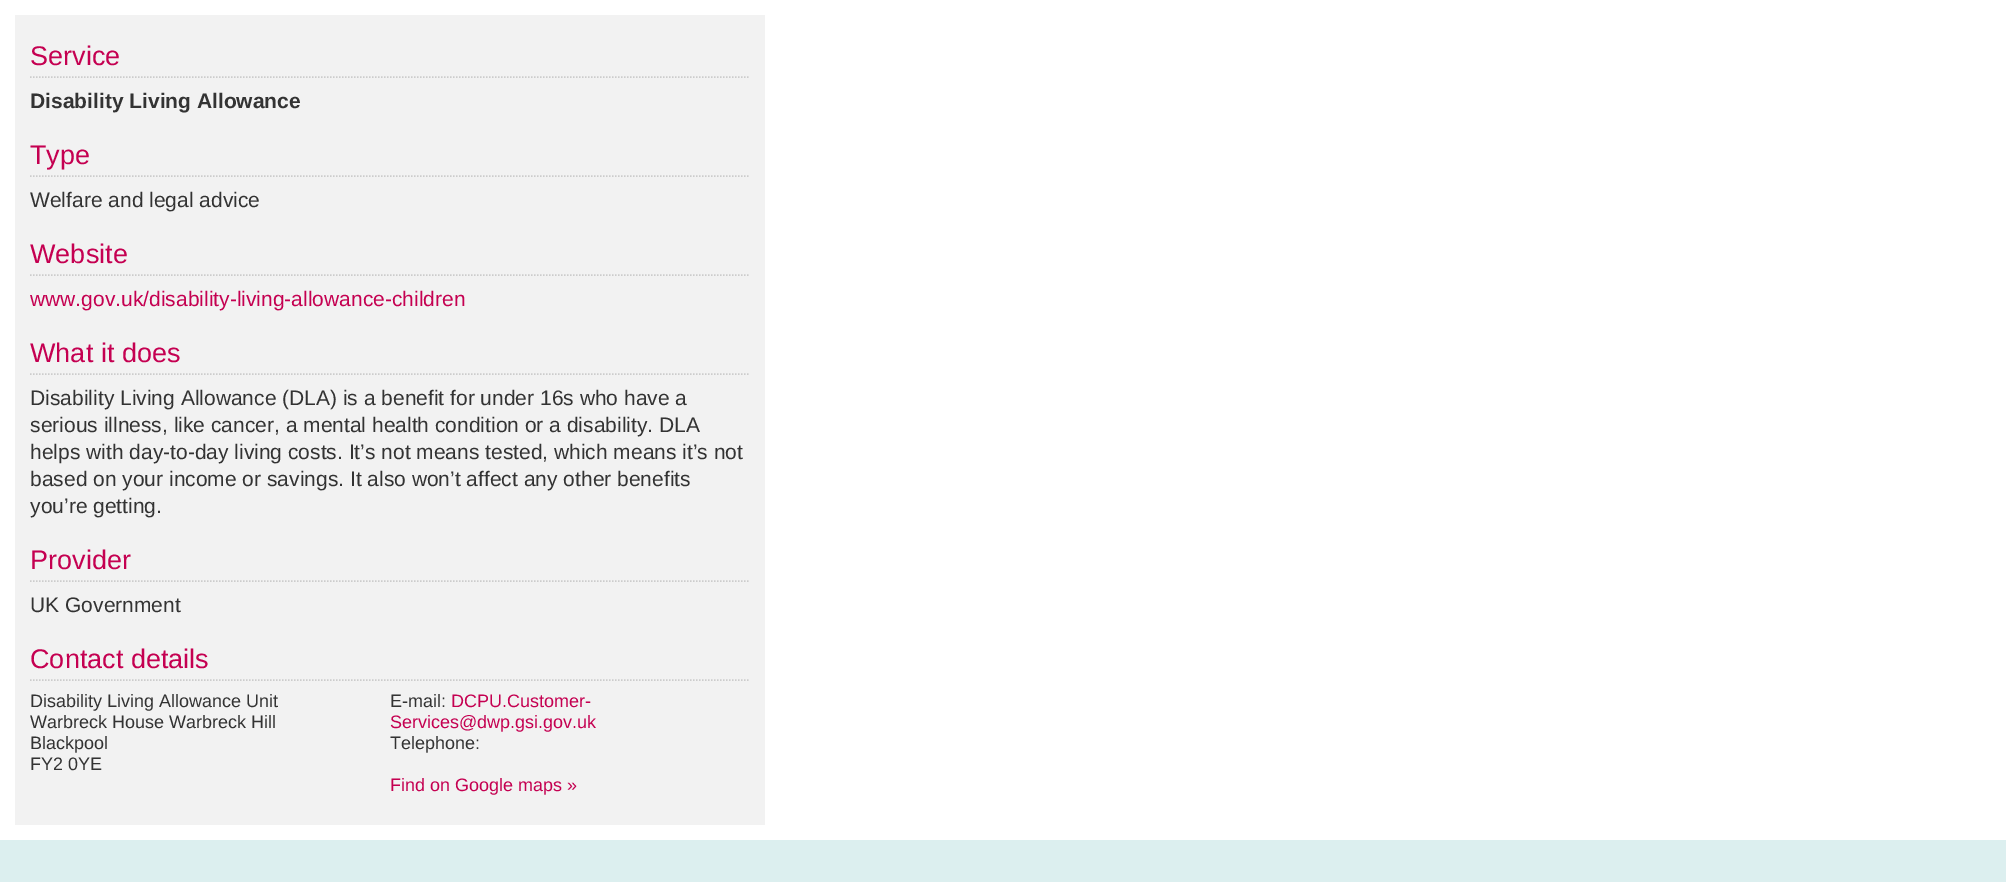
%!PS
<< /PageSize [2006 882] >> setpagedevice
/rgb { 3 { 255 div 3 1 roll } repeat setrgbcolor } def
/font { [ exch dup neg 0 0 3 -1 roll 0 0 ] selectfont } def
/text { moveto show } def
0 882 translate 1 -1 scale
4 setmiterlimit
220 239 239 rgb
0 0 2006 882 rectfill
255 255 255 rgb
0 0 2006 840 rectfill
242 242 242 rgb
15 15 750 810 rectfill
204 204 204 rgb
1.5 setlinewidth
[1.5 1.5] 0 setdash
30 77 moveto 720 0 rlineto stroke
30 176 moveto 720 0 rlineto stroke
30 275 moveto 720 0 rlineto stroke
30 374 moveto 720 0 rlineto stroke
30 581 moveto 720 0 rlineto stroke
30 680 moveto 720 0 rlineto stroke
/LiberationSans-Regular 27 font
197 0 81 rgb
(Service) 30 65 text
/LiberationSans-Bold 21 font
51 51 51 rgb
(Disability Living Allowance) 30 108 text
/LiberationSans-Regular 27 font
197 0 81 rgb
(Type) 30 164 text
/LiberationSans-Regular 21 font
51 51 51 rgb
(Welfare and legal advice) 30 207 text
/LiberationSans-Regular 27 font
197 0 81 rgb
(Website) 30 263 text
/LiberationSans-Regular 21 font
(www.gov.uk/disability-living-allowance-children) 30 306 text
/LiberationSans-Regular 27 font
(What it does) 30 362 text
/LiberationSans-Regular 21 font
51 51 51 rgb
(Disability Living Allowance \(DLA\) is a benefit for under 16s who have a) 30 405 text
(serious illness, like cancer, a mental health condition or a disability. DLA) 30 432 text
(helps with day-to-day living costs. It’s not means tested, which means it’s not) 30 459 text
(based on your income or savings. It also won’t affect any other benefits) 30 486 text
(you’re getting.) 30 513 text
/LiberationSans-Regular 27 font
197 0 81 rgb
(Provider) 30 569 text
/LiberationSans-Regular 21 font
51 51 51 rgb
(UK Government) 30 612 text
/LiberationSans-Regular 27 font
197 0 81 rgb
(Contact details) 30 668 text
/LiberationSans-Regular 18 font
51 51 51 rgb
(Disability Living Allowance Unit) 30 707 text
(Warbreck House Warbreck Hill) 30 728 text
(Blackpool) 30 749 text
(FY2 0YE) 30 770 text
(E-mail:) 390 707 text
197 0 81 rgb
(DCPU.Customer-) 451 707 text
(Services@dwp.gsi.gov.uk) 390 728 text
51 51 51 rgb
(Telephone:) 390 749 text
197 0 81 rgb
(Find on Google maps ») 390 791 text
showpage
